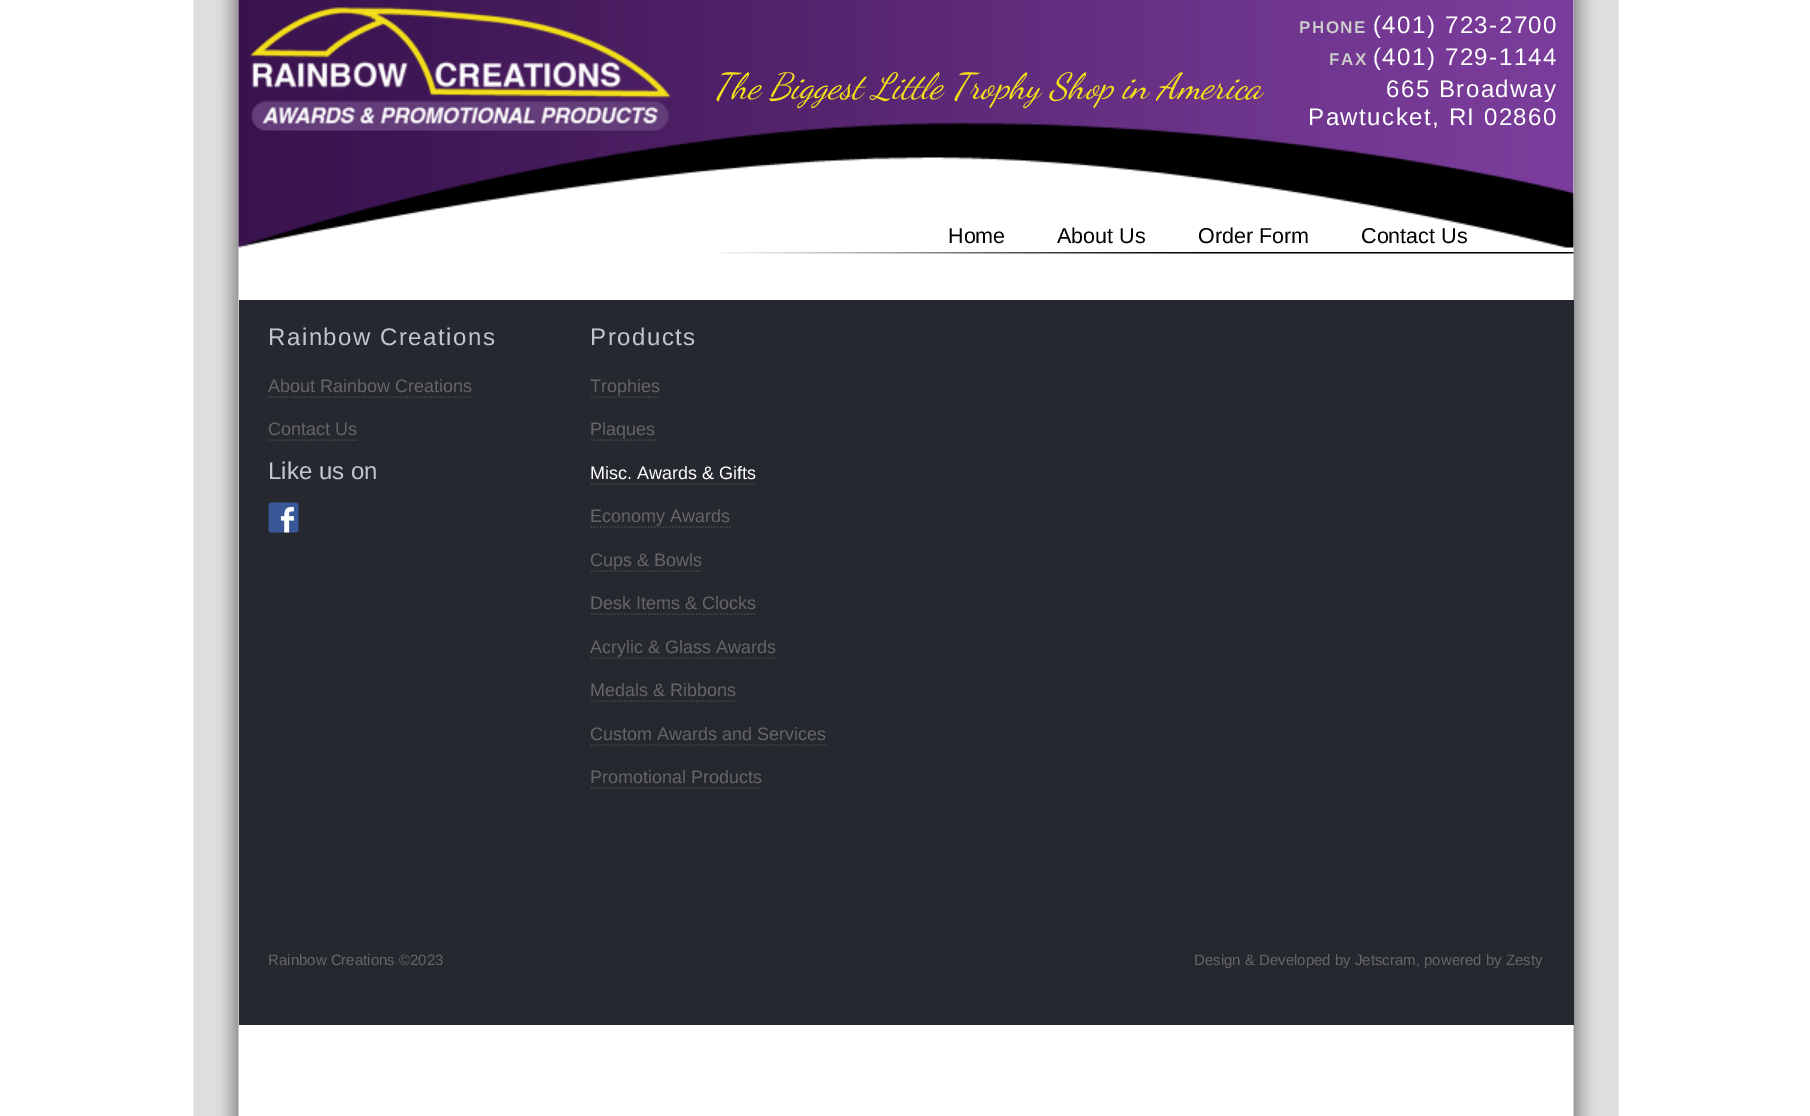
%!PS
<< /PageSize [1810 1116] >> setpagedevice
/rgb { 3 { 255 div 3 1 roll } repeat setrgbcolor } def
/font { [ exch dup neg 0 0 3 -1 roll 0 0 ] selectfont } def
/text { moveto show } def
/picture { 5 dict begin { /h /w /y /x /name } { exch def } forall
  gsave x y translate w h scale
  w h 8 [w 0 0 h 0 0] name (r) file false 3 colorimage grestore end } def
0 1116 translate 1 -1 scale
4 setmiterlimit
255 255 255 rgb
0 0 1810 1116 rectfill
(img_01.rgb) 193 0 1426 1116 picture
1573 0 1 248 rectfill
(img_02.rgb) 238 0 1336 248 picture
(img_03.rgb) 250 7 421 124 picture
(img_04.rgb) 721 252 853 2 picture
38 40 47 rgb
239 300 1335 725 rectfill
68 68 68 rgb
1.5 setlinewidth
[1.5 1.5] 0 setdash
268.5 397 moveto 204 0 rlineto stroke
268.5 440 moveto 88.5 0 rlineto stroke
(img_05.rgb) 268 502 31 31 picture
591 397 moveto 69 0 rlineto stroke
591 440 moveto 64.5 0 rlineto stroke
591 484 moveto 165 0 rlineto stroke
591 527 moveto 139.5 0 rlineto stroke
591 571 moveto 111 0 rlineto stroke
591 614 moveto 165 0 rlineto stroke
591 658 moveto 186 0 rlineto stroke
591 701 moveto 145.5 0 rlineto stroke
591 745 moveto 235.5 0 rlineto stroke
591 788 moveto 171 0 rlineto stroke
/DancingScript-Italic 36 font
244 224 26 rgb
(The Biggest Little Trophy Shop in America) 713 98 text
/LiberationSans-Bold 17 font
204 204 204 rgb
1299 33 moveto 1.5 0 (PHONE) ashow
/LiberationSans-Regular 24 font
255 255 255 rgb
1373 33 moveto 1.5 0 (\(401\) 723-2700) ashow
/LiberationSans-Bold 17 font
204 204 204 rgb
1329 65 moveto 1.5 0 (FAX) ashow
/LiberationSans-Regular 24 font
255 255 255 rgb
1373 65 moveto 1.5 0 (\(401\) 729-1144) ashow
1386 97 moveto 1.5 0 (665 Broadway) ashow
1308 125 moveto 1.5 0 (Pawtucket, RI 02860) ashow
/LiberationSans-Regular 21.5 font
0 0 0 rgb
(Home) 948 243 text
(About Us) 1057 243 text
(Order Form) 1198 243 text
(Contact Us) 1361 243 text
/LiberationSans-Regular 24 font
194 199 207 rgb
268 345 moveto 1.5 0 (Rainbow Creations) ashow
/LiberationSans-Regular 18 font
102 102 102 rgb
(About Rainbow Creations) 268 392 text
(Contact Us) 268 435 text
/LiberationSans-Regular 24 font
194 199 207 rgb
(Like us on) 268 479 text
590 345 moveto 1.5 0 (Products) ashow
/LiberationSans-Regular 18 font
102 102 102 rgb
(Trophies) 590 392 text
(Plaques) 590 435 text
255 255 255 rgb
(Misc. Awards & Gifts) 590 479 text
102 102 102 rgb
(Economy Awards) 590 522 text
(Cups & Bowls) 590 566 text
(Desk Items & Clocks) 590 609 text
(Acrylic & Glass Awards) 590 653 text
(Medals & Ribbons) 590 696 text
(Custom Awards and Services) 590 740 text
(Promotional Products) 590 783 text
/LiberationSans-Regular 15 font
(Rainbow Creations ©2023) 268 965 text
(Design & Developed by Jetscram, powered by Zesty) 1194 965 text
showpage
